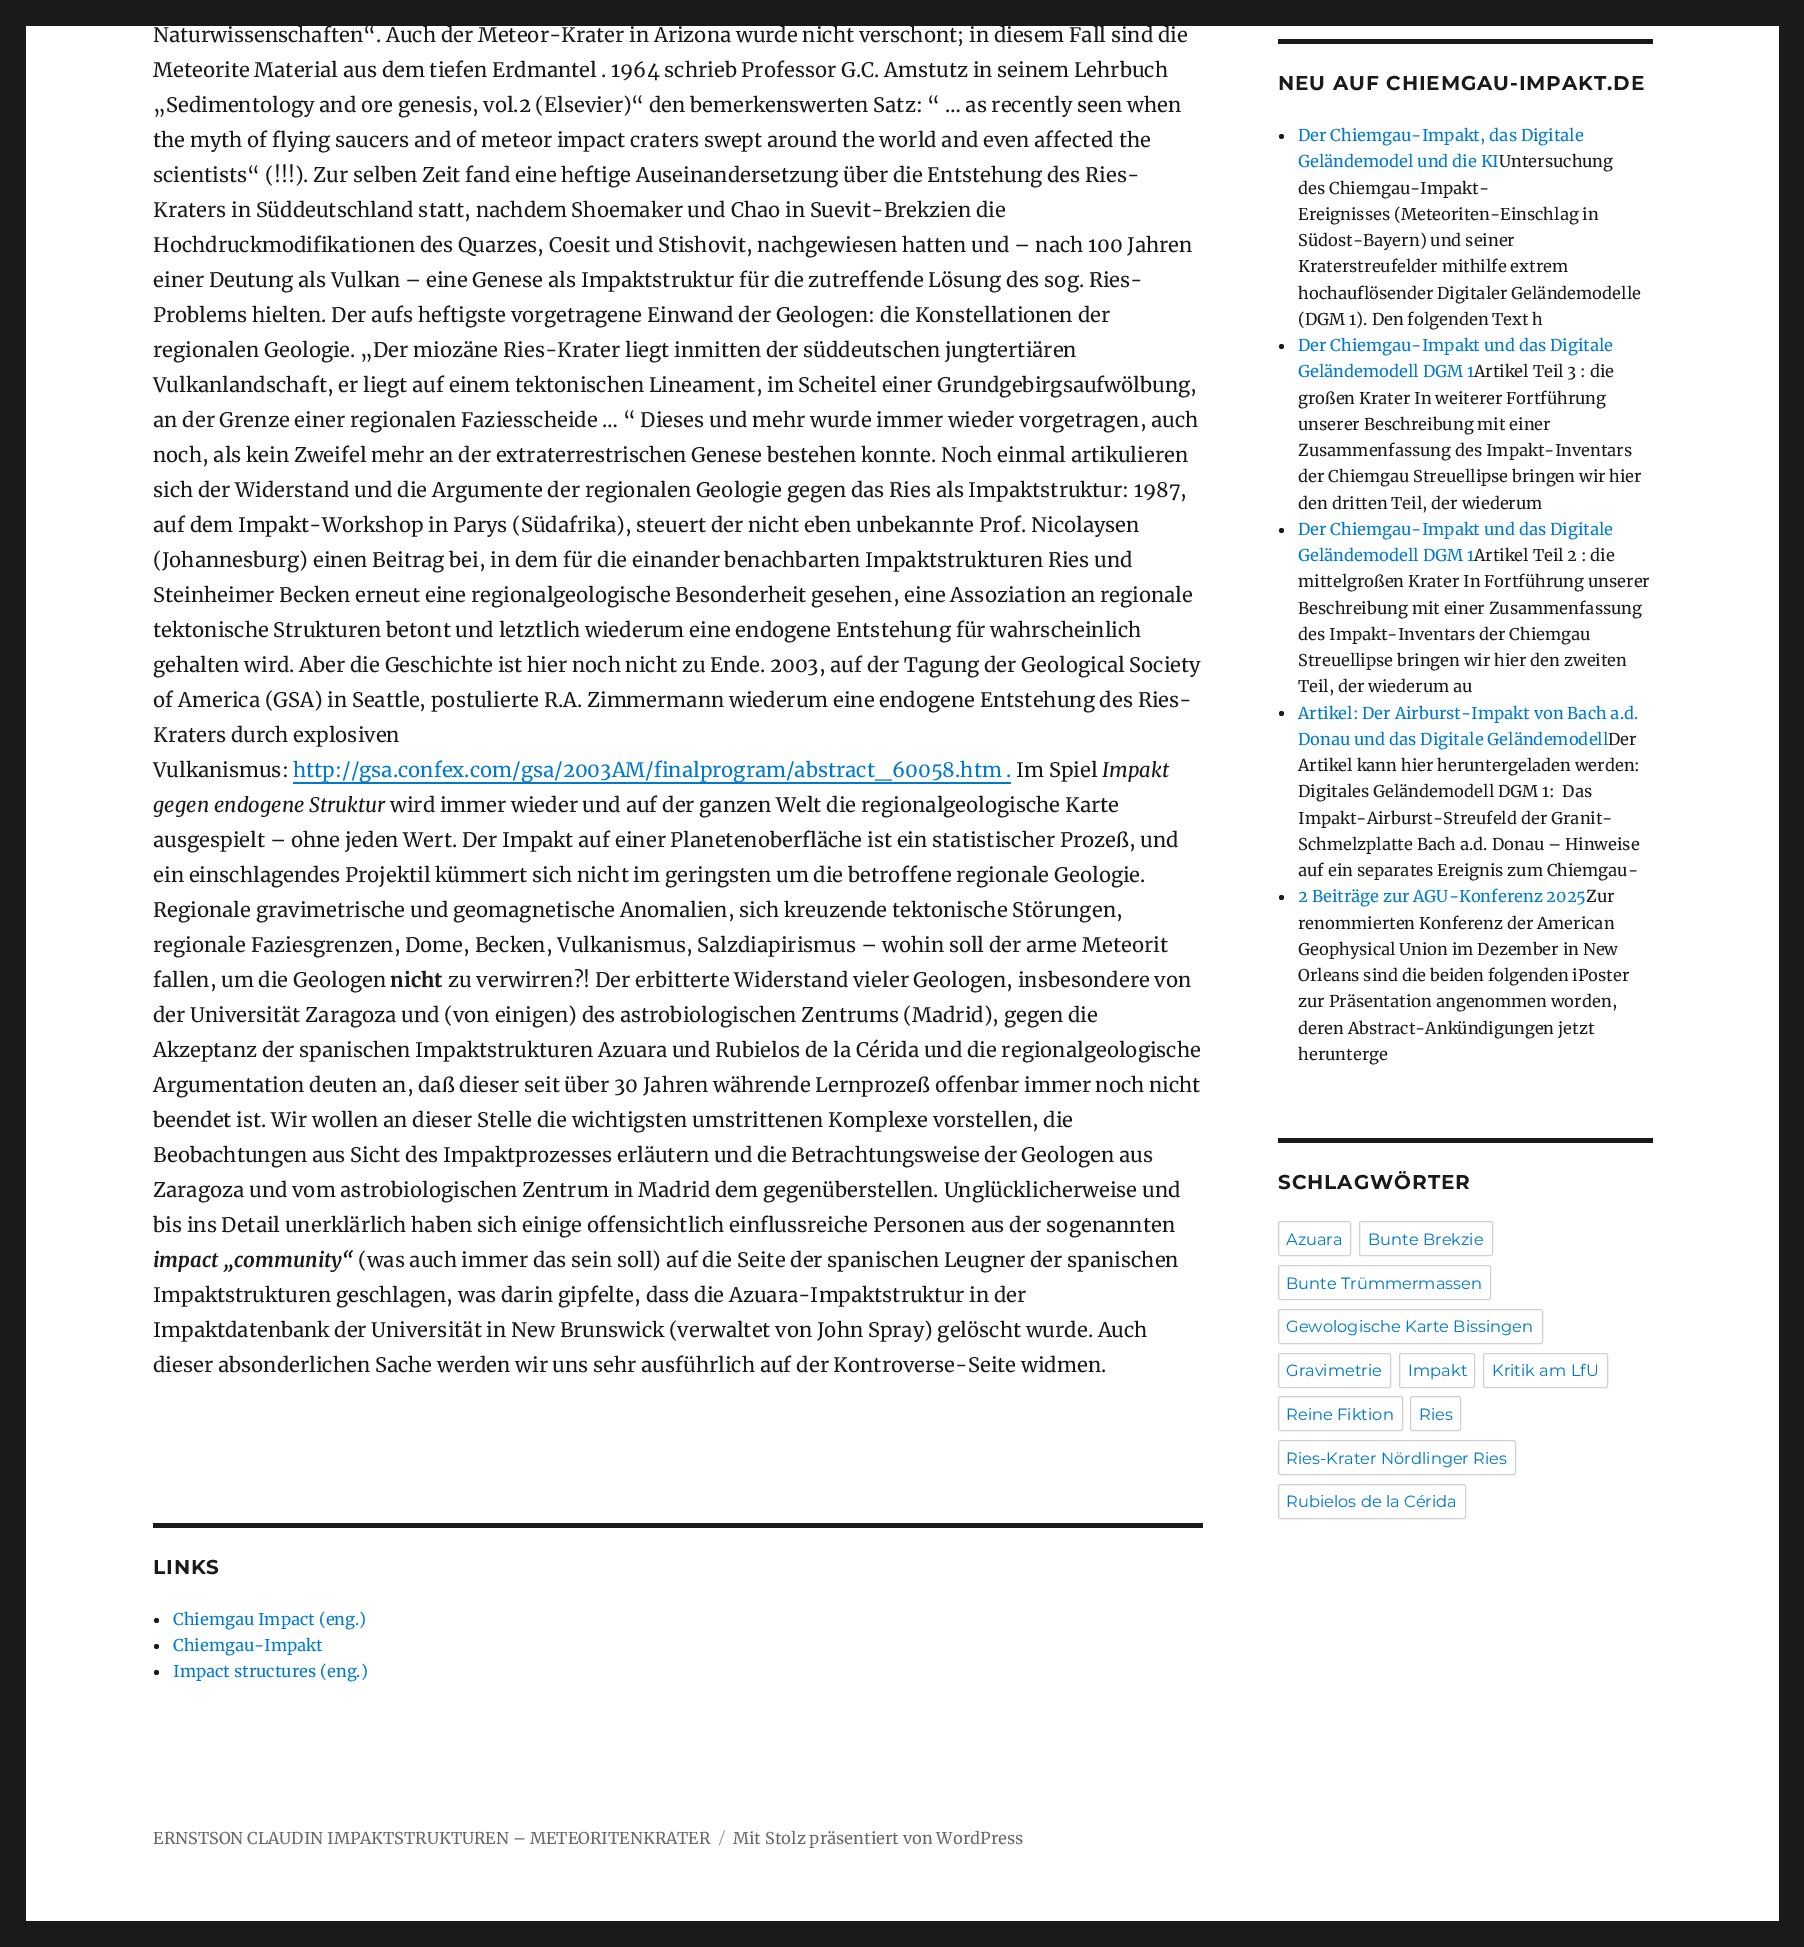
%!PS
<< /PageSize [1804 1947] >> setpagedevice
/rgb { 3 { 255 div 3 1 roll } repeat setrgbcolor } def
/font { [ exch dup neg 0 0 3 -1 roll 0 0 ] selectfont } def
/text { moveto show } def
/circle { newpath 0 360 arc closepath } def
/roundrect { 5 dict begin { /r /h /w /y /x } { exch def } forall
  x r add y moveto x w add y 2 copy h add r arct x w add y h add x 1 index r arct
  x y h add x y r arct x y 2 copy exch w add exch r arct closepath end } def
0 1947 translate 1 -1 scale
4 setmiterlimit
26 26 26 rgb
0 0 1804 1947 rectfill
255 255 255 rgb
26 26 1753 1895 rectfill
0 122 204 rgb
293 782 718 2 rectfill
26 26 26 rgb
153 1523 1050 5 rectfill
156.5 1620.5 2.5 circle fill
156.5 1646.5 2.5 circle fill
156.5 1672.5 2.5 circle fill
1278 39 375 5 rectfill
1281.5 136.5 2.5 circle fill
1281.5 346.5 2.5 circle fill
1281.5 530.5 2.5 circle fill
1281.5 713.5 2.5 circle fill
1281.5 897.5 2.5 circle fill
1278 1138 375 5 rectfill
209 209 209 rgb
1278.5 1221.5 72 34 2 roundrect stroke
1359.5 1221.5 133 34 2 roundrect stroke
1278.5 1265.5 212 34 2 roundrect stroke
1278.5 1309.5 264 34 2 roundrect stroke
1278.5 1353.5 112 34 2 roundrect stroke
1399.5 1353.5 75 34 2 roundrect stroke
1483.5 1353.5 124 34 2 roundrect stroke
1278.5 1396.5 124 34 2 roundrect stroke
1410.5 1396.5 50 34 2 roundrect stroke
1278.5 1440.5 237 34 2 roundrect stroke
1278.5 1484.5 187 34 2 roundrect stroke
/Merriweather-Regular 20 font
26 26 26 rgb
(Naturwissenschaften“. Auch der Meteor-Krater in Arizona wurde nicht verschont; in diesem Fall sind die) 153 42 text
(Meteorite Material aus dem tiefen Erdmantel . 1964 schrieb Professor G.C. Amstutz in seinem Lehrbuch) 153 77 text
(„Sedimentology and ore genesis, vol.2 \(Elsevier\)“ den bemerkenswerten Satz: “ … as recently seen when) 153 112 text
(the myth of flying saucers and of meteor impact craters swept around the world and even affected the) 153 147 text
(scientists“ \(!!!\). Zur selben Zeit fand eine heftige Auseinandersetzung über die Entstehung des Ries-) 153 182 text
(Kraters in Süddeutschland statt, nachdem Shoemaker und Chao in Suevit-Brekzien die) 153 217 text
(Hochdruckmodifikationen des Quarzes, Coesit und Stishovit, nachgewiesen hatten und – nach 100 Jahren) 153 252 text
(einer Deutung als Vulkan – eine Genese als Impaktstruktur für die zutreffende Lösung des sog. Ries-) 153 287 text
(Problems hielten. Der aufs heftigste vorgetragene Einwand der Geologen: die Konstellationen der) 153 322 text
(regionalen Geologie. „Der miozäne Ries-Krater liegt inmitten der süddeutschen jungtertiären) 153 357 text
(Vulkanlandschaft, er liegt auf einem tektonischen Lineament, im Scheitel einer Grundgebirgsaufwölbung,) 153 392 text
(an der Grenze einer regionalen Faziesscheide … “ Dieses und mehr wurde immer wieder vorgetragen, auch) 153 427 text
(noch, als kein Zweifel mehr an der extraterrestrischen Genese bestehen konnte. Noch einmal artikulieren) 153 462 text
(sich der Widerstand und die Argumente der regionalen Geologie gegen das Ries als Impaktstruktur: 1987,) 153 497 text
(auf dem Impakt-Workshop in Parys \(Südafrika\), steuert der nicht eben unbekannte Prof. Nicolaysen) 153 532 text
(\(Johannesburg\) einen Beitrag bei, in dem für die einander benachbarten Impaktstrukturen Ries und) 153 567 text
(Steinheimer Becken erneut eine regionalgeologische Besonderheit gesehen, eine Assoziation an regionale) 153 602 text
(tektonische Strukturen betont und letztlich wiederum eine endogene Entstehung für wahrscheinlich) 153 637 text
(gehalten wird. Aber die Geschichte ist hier noch nicht zu Ende. 2003, auf der Tagung der Geological Society) 153 672 text
(of America \(GSA\) in Seattle, postulierte R.A. Zimmermann wiederum eine endogene Entstehung des Ries-) 153 707 text
(Kraters durch explosiven) 153 742 text
(Vulkanismus:) 153 777 text
0 122 204 rgb
(http://gsa.confex.com/gsa/2003AM/finalprogram/abstract_60058.htm .) 293 777 text
26 26 26 rgb
(Im Spiel) 1016 777 text
/Merriweather-Italic 20 font
(Impakt) 1102 777 text
(gegen endogene Struktur) 153 812 text
/Merriweather-Regular 20 font
(wird immer wieder und auf der ganzen Welt die regionalgeologische Karte) 390 812 text
(ausgespielt – ohne jeden Wert. Der Impakt auf einer Planetenoberfläche ist ein statistischer Prozeß, und) 153 847 text
(ein einschlagendes Projektil kümmert sich nicht im geringsten um die betroffene regionale Geologie.) 153 882 text
(Regionale gravimetrische und geomagnetische Anomalien, sich kreuzende tektonische Störungen,) 153 917 text
(regionale Faziesgrenzen, Dome, Becken, Vulkanismus, Salzdiapirismus – wohin soll der arme Meteorit) 153 952 text
(fallen, um die Geologen) 153 987 text
/Merriweather-Bold 20 font
(nicht) 390 987 text
/Merriweather-Regular 20 font
(zu verwirren?! Der erbitterte Widerstand vieler Geologen, insbesondere von) 448 987 text
(der Universität Zaragoza und \(von einigen\) des astrobiologischen Zentrums \(Madrid\), gegen die) 153 1022 text
(Akzeptanz der spanischen Impaktstrukturen Azuara und Rubielos de la Cérida und die regionalgeologische) 153 1057 text
(Argumentation deuten an, daß dieser seit über 30 Jahren währende Lernprozeß offenbar immer noch nicht) 153 1092 text
(beendet ist. Wir wollen an dieser Stelle die wichtigsten umstrittenen Komplexe vorstellen, die) 153 1127 text
(Beobachtungen aus Sicht des Impaktprozesses erläutern und die Betrachtungsweise der Geologen aus) 153 1162 text
(Zaragoza und vom astrobiologischen Zentrum in Madrid dem gegenüberstellen. Unglücklicherweise und) 153 1197 text
(bis ins Detail unerklärlich haben sich einige offensichtlich einflussreiche Personen aus der sogenannten) 153 1232 text
/Merriweather-BoldItalic 20 font
(impact „community“) 153 1267 text
/Merriweather-Regular 20 font
(\(was auch immer das sein soll\) auf die Seite der spanischen Leugner der spanischen) 358 1267 text
(Impaktstrukturen geschlagen, was darin gipfelte, dass die Azuara-Impaktstruktur in der) 153 1302 text
(Impaktdatenbank der Universität in New Brunswick \(verwaltet von John Spray\) gelöscht wurde. Auch) 153 1337 text
(dieser absonderlichen Sache werden wir uns sehr ausführlich auf der Kontroverse-Seite widmen.) 153 1372 text
/Montserrat-Thin 20 font
153 1574 moveto 0.95 0 (LINKS) ashow
/Merriweather-Regular 16.25 font
0 122 204 rgb
(Chiemgau Impact \(eng.\)) 173 1625 text
(Chiemgau-Impakt) 173 1651 text
(Impact structures \(eng.\)) 173 1677 text
/Montserrat-Thin 20 font
26 26 26 rgb
1278 90 moveto 0.95 0 (NEU AUF CHIEMGAU-IMPAKT.DE) ashow
/Merriweather-Regular 16.25 font
0 122 204 rgb
(Der Chiemgau-Impakt, das Digitale) 1298 141 text
(Geländemodel und die KI) 1298 167 text
26 26 26 rgb
(Untersuchung) 1499 167 text
(des Chiemgau-Impakt-) 1298 194 text
(Ereignisses \(Meteoriten-Einschlag in) 1298 220 text
(Südost-Bayern\) und seiner) 1298 246 text
(Kraterstreufelder mithilfe extrem) 1298 272 text
(hochauflösender Digitaler Geländemodelle) 1298 299 text
(\(DGM 1\). Den folgenden Text h) 1298 325 text
0 122 204 rgb
(Der Chiemgau-Impakt und das Digitale) 1298 351 text
(Geländemodell DGM 1) 1298 377 text
26 26 26 rgb
(Artikel Teil 3 : die) 1474 377 text
(großen Krater In weiterer Fortführung) 1298 404 text
(unserer Beschreibung mit einer) 1298 430 text
(Zusammenfassung des Impakt-Inventars) 1298 456 text
(der Chiemgau Streuellipse bringen wir hier) 1298 482 text
(den dritten Teil, der wiederum) 1298 509 text
0 122 204 rgb
(Der Chiemgau-Impakt und das Digitale) 1298 535 text
(Geländemodell DGM 1) 1298 561 text
26 26 26 rgb
(Artikel Teil 2 : die) 1474 561 text
(mittelgroßen Krater In Fortführung unserer) 1298 587 text
(Beschreibung mit einer Zusammenfassung) 1298 614 text
(des Impakt-Inventars der Chiemgau) 1298 640 text
(Streuellipse bringen wir hier den zweiten) 1298 666 text
(Teil, der wiederum au) 1298 692 text
0 122 204 rgb
(Artikel: Der Airburst-Impakt von Bach a.d.) 1298 719 text
(Donau und das Digitale Geländemodell) 1298 745 text
26 26 26 rgb
(Der) 1608 745 text
(Artikel kann hier heruntergeladen werden:) 1298 771 text
(Digitales Geländemodell DGM 1:  Das) 1298 797 text
(Impakt-Airburst-Streufeld der Granit-) 1298 824 text
(Schmelzplatte Bach a.d. Donau – Hinweise) 1298 850 text
(auf ein separates Ereignis zum Chiemgau-) 1298 876 text
0 122 204 rgb
(2 Beiträge zur AGU-Konferenz 2025) 1298 902 text
26 26 26 rgb
(Zur) 1586 902 text
(renommierten Konferenz der American) 1298 929 text
(Geophysical Union im Dezember in New) 1298 955 text
(Orleans sind die beiden folgenden iPoster) 1298 981 text
(zur Präsentation angenommen worden,) 1298 1007 text
(deren Abstract-Ankündigungen jetzt) 1298 1034 text
(herunterge) 1298 1060 text
/Montserrat-Thin 20 font
1278 1189 moveto 0.95 0 (SCHLAGWÖRTER) ashow
/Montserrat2-Thin 16.25 font
0 122 204 rgb
(Azuara) 1286 1245 text
(Bunte Brekzie) 1368 1245 text
(Bunte Trümmermassen) 1286 1289 text
(Gewologische Karte Bissingen) 1286 1332 text
(Gravimetrie) 1286 1376 text
(Impakt) 1408 1376 text
(Kritik am LfU) 1492 1376 text
(Reine Fiktion) 1286 1420 text
(Ries) 1419 1420 text
(Ries-Krater Nördlinger Ries) 1286 1464 text
(Rubielos de la Cérida) 1286 1507 text
/Merriweather-Regular 16.25 font
104 104 104 rgb
(ERNSTSON CLAUDIN IMPAKTSTRUKTUREN – METEORITENKRATER) 153 1844 text
/Montserrat2-Thin 16.25 font
149 149 149 rgb
(/) 719 1844 text
/Merriweather-Regular 16.25 font
104 104 104 rgb
(Mit Stolz präsentiert von WordPress) 733 1844 text
showpage
